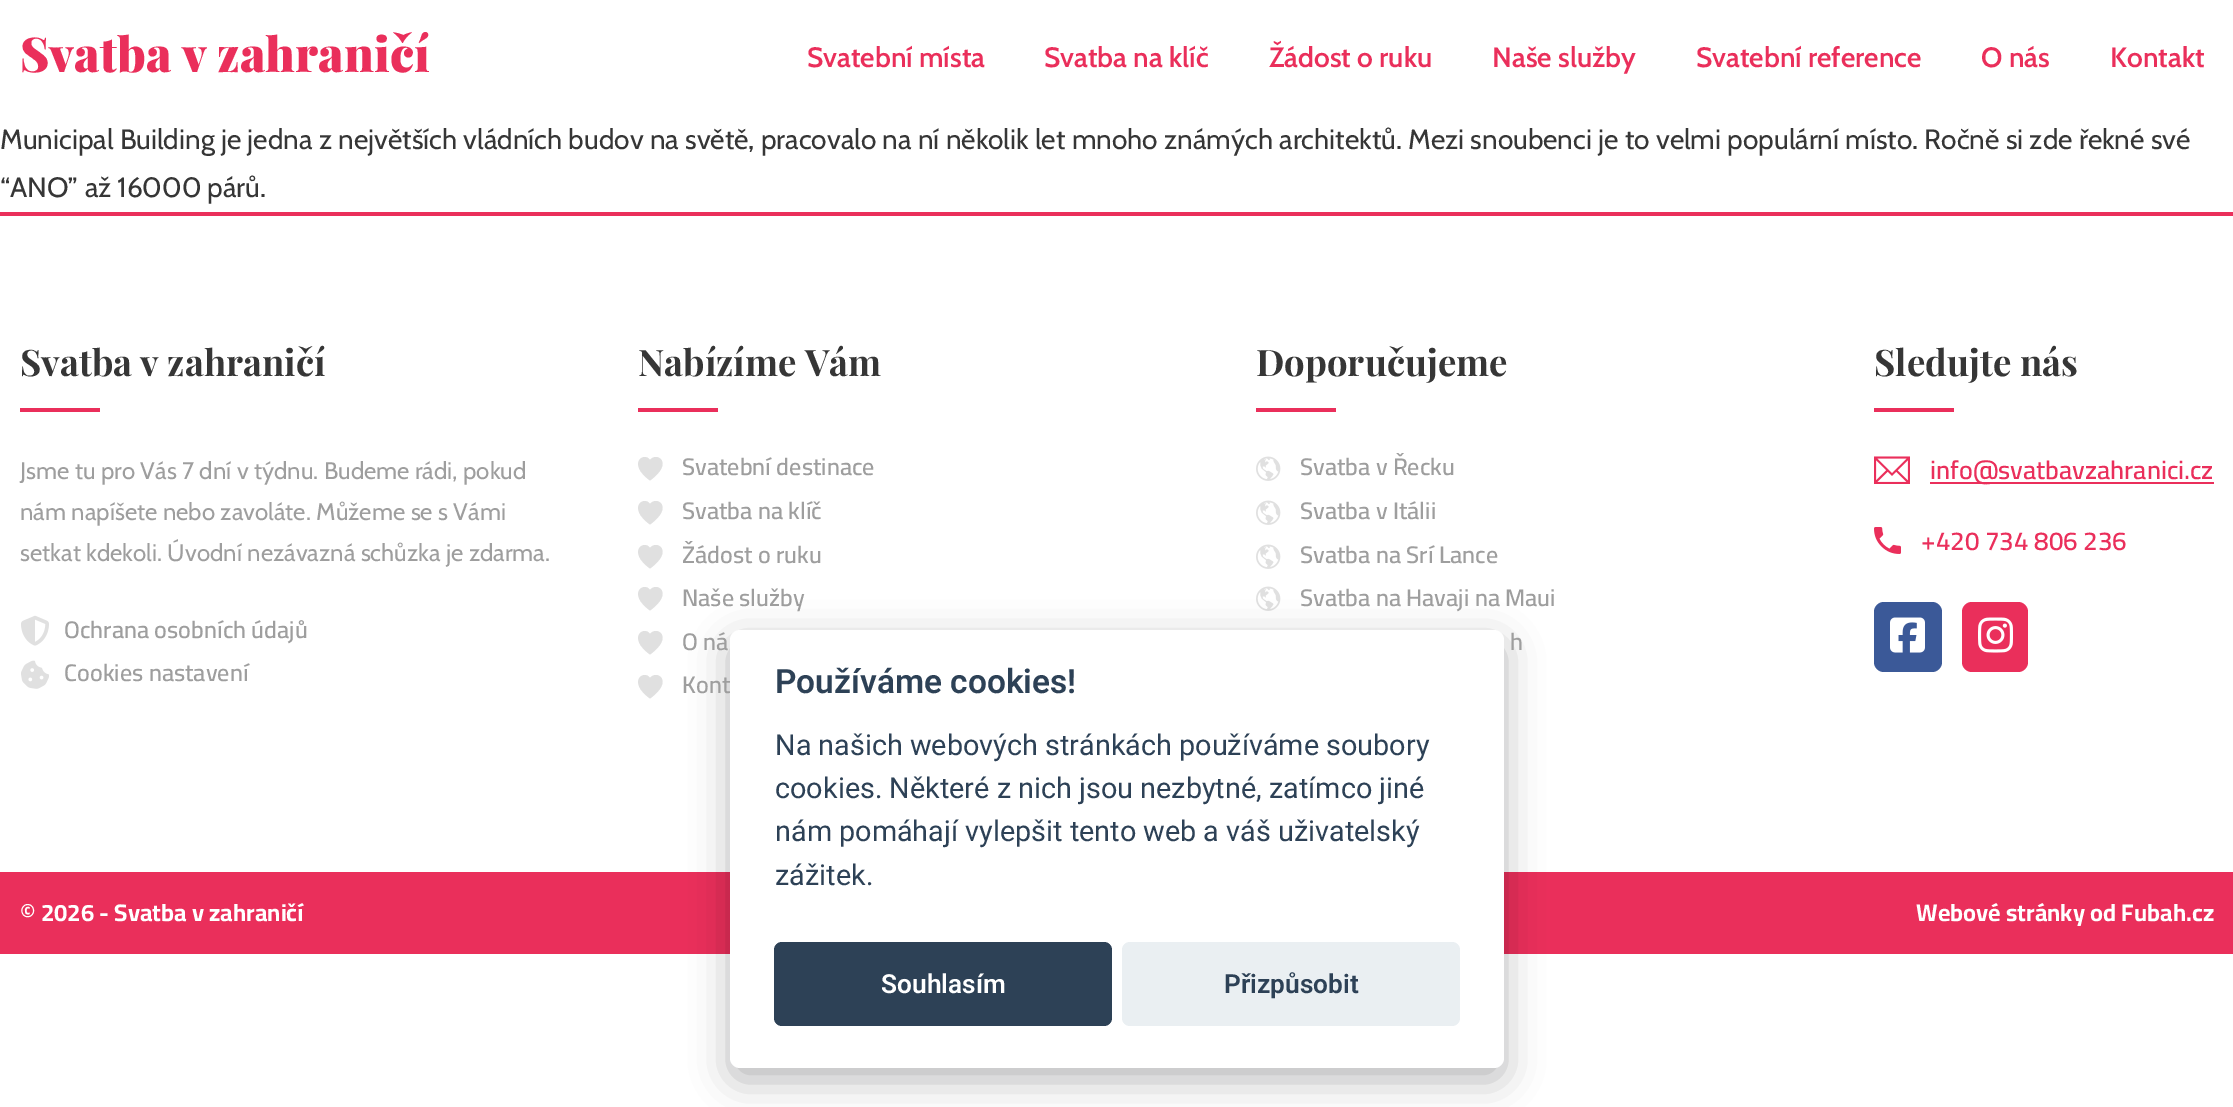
%!PS
<< /PageSize [2233 1107] /PageUsesTransparency true >> setpagedevice
/rgb { 3 { 255 div 3 1 roll } repeat setrgbcolor } def
/font { [ exch dup neg 0 0 3 -1 roll 0 0 ] selectfont } def
/text { moveto show } def
/alpha { dup .setfillconstantalpha .setstrokeconstantalpha } def
/roundrect { 5 dict begin { /r /h /w /y /x } { exch def } forall
  x r add y moveto x w add y 2 copy h add r arct x w add y h add x 1 index r arct
  x y h add x y r arct x y 2 copy exch w add exch r arct closepath end } def
/shadow { 12 dict begin { /a /b /q /h /w /y /x } { exch def } forall gsave /was 0 def
  9 -2 -9 { dup b mul 4 div /e exch def 1 sub .425 mul 2.718 exch exp 1 add a .99 .min exch div /now exch def
    1 1 now sub 1 was sub div sub alpha /was now def
    w h .min e 2 mul add 0 gt { x e sub y e sub w e 2 mul add h e 2 mul add
      q e add b .6 mul add w h .min 2 div e add .min 0 .max roundrect fill } if } for grestore end } def
/picture { 5 dict begin { /h /w /y /x /name } { exch def } forall
  gsave x y translate w h scale
  w h 8 [w 0 0 h 0 0] name (r) file false 3 colorimage grestore end } def
0 .pushpdf14devicefilter
0 1107 translate 1 -1 scale
4 setmiterlimit
255 255 255 rgb
0 0 2233 1107 rectfill
234 47 91 rgb
0 212 2233 4 rectfill
20 408 80 4 rectfill
(img_01.rgb) 21 615 28 31 picture
(img_02.rgb) 21 660 28 29 picture
638 408 80 4 rectfill
224 224 224 rgb
656 457 moveto 2 0 4 1 5.5 3 rcurveto 4.5 7.5 -6 16.5 -11.5 20.5 rcurveto -23.5 -17 -6 -29.5 0 -20.5 rcurveto 1.5 -2 3.5 -3 6 -3 rcurveto closepath fill
656 501 moveto 2 0 4 1 5.5 3 rcurveto 4.5 7.5 -6 16.5 -11.5 20.5 rcurveto -23.5 -17 -6 -29.5 0 -20.5 rcurveto 1.5 -2 3.5 -3 6 -3 rcurveto closepath fill
656 545 moveto 2 0 4 1 5.5 3 rcurveto 4.5 7.5 -6 16.5 -11.5 20.5 rcurveto -23.5 -17 -6 -29.5 0 -20.5 rcurveto 1.5 -2 3.5 -3 6 -3 rcurveto closepath fill
656 587 moveto 2 0 4 1 5.5 3 rcurveto 4.5 7.5 -6 16.5 -11.5 20.5 rcurveto -23.5 -17 -6 -29.5 0 -20.5 rcurveto 1.5 -2 3.5 -3 6 -3 rcurveto closepath fill
656 631 moveto 2 0 4 1 5.5 3 rcurveto 4.5 7.5 -6 16.5 -11.5 20.5 rcurveto -23.5 -17 -6 -29.5 0 -20.5 rcurveto 1.5 -2 3.5 -3 6 -3 rcurveto closepath fill
656 675 moveto 2 0 4 1 5.5 3 rcurveto 4.5 7.5 -6 16.5 -11.5 20.5 rcurveto -23.5 -17 -6 -29.5 0 -20.5 rcurveto 1.5 -2 3.5 -3 6 -3 rcurveto closepath fill
234 47 91 rgb
1256 408 80 4 rectfill
(img_03.rgb) 1256 456 25 25 picture
(img_03.rgb) 1256 500 25 25 picture
(img_03.rgb) 1256 544 25 25 picture
(img_03.rgb) 1256 586 25 25 picture
1874 408 80 4 rectfill
(img_04.rgb) 1874 456 36 28 picture
1930 482 284 2 rectfill
(img_05.rgb) 1874 527 27 27 picture
59 89 152 rgb
1874 602 68 70 10 roundrect fill
(img_06.rgb) 1890 617 35 36 picture
234 47 91 rgb
1962 602 66 70 10 roundrect fill
(img_07.rgb) 1978 617 35 36 picture
0 872 2233 82 rectfill
2 2 3 rgb
730 642 774 438 10 19 0.28 shadow
/PlayfairDisplay-Black 48 font
234 47 91 rgb
(Svatba v zahraničí) 20 72 text
/Cabin-SemiBold 28 font
(Svatební místa) 807 67 text
(Svatba na klíč) 1044 67 text
(Žádost o ruku) 1269 67 text
(Naše služby) 1492 67 text
(Svatební reference) 1696 67 text
(O nás) 1981 67 text
(Kontakt) 2110 67 text
/Cabin-Regular 28 font
54 54 54 rgb
(Municipal Building je jedna z největších vládních budov na světě, pracovalo na ní několik let mnoho známých architektů. Mezi snoubenci je to velmi populární místo. Ročně si zde řekné své) 0 149 text
(“ANO” až 16000 párů.) 0 197 text
/PlayfairDisplay-Bold 36.5 font
(Svatba v zahraničí) 20 376 text
/Cabin-Regular 24 font
158 158 158 rgb
(Jsme tu pro Vás 7 dní v týdnu. Budeme rádi, pokud) 20 479 text
(nám napíšete nebo zavoláte. Můžeme se s Vámi) 20 520 text
(setkat kdekoli. Úvodní nezávazná schůzka je zdarma.) 20 561 text
/Cairo-SemiBold 24 font
(Ochrana osobních údajů) 64 638 text
(Cookies nastavení) 64 681 text
/PlayfairDisplay-Bold 36.5 font
54 54 54 rgb
(Nabízíme Vám) 638 376 text
/Cairo-SemiBold 24 font
158 158 158 rgb
(Svatební destinace) 682 475 text
(Svatba na klíč) 682 519 text
(Žádost o ruku) 682 563 text
(Naše služby) 682 606 text
(O ná) 682 650 text
(Kont) 682 693 text
/PlayfairDisplay-Bold 36.5 font
54 54 54 rgb
(Doporučujeme) 1256 376 text
/Cairo-SemiBold 24 font
158 158 158 rgb
(Svatba v Řecku) 1300 475 text
(Svatba v Itálii) 1300 519 text
(Svatba na Srí Lance) 1300 563 text
(Svatba na Havaji na Maui) 1300 606 text
(h) 1510 650 text
/PlayfairDisplay-Bold 36.5 font
54 54 54 rgb
(Sledujte nás) 1874 376 text
/Cairo-SemiBold 26 font
234 47 91 rgb
(info@svatbavzahranici.cz) 1930 479 text
(+420 734 806 236) 1921 550 text
/Cairo-Bold 24 font
255 255 255 rgb
(© 2026 - Svatba v zahraničí) 20 921 text
(Webové stránky od Fubah.cz) 1916 921 text
730 630 774 438 10 roundrect fill
/Roboto-SemiBold 33.5 font
45 65 86 rgb
(Používáme cookies!) 775 693 text
/Roboto-Regular 28.8 font
(Na našich webových stránkách používáme soubory) 775 755 text
(cookies. Některé z nich jsou nezbytné, zatímco jiné) 775 798 text
(nám pomáhají vylepšit tento web a váš uživatelský) 775 841 text
(zážitek.) 775 885 text
774 942 338 84 8 roundrect fill
/Roboto-SemiBold 26.25 font
255 255 255 rgb
(Souhlasím) 881 993 text
234 239 242 rgb
1122 942 338 84 8 roundrect fill
45 65 86 rgb
(Přizpůsobit) 1224 993 text
.poppdf14devicefilter showpage
